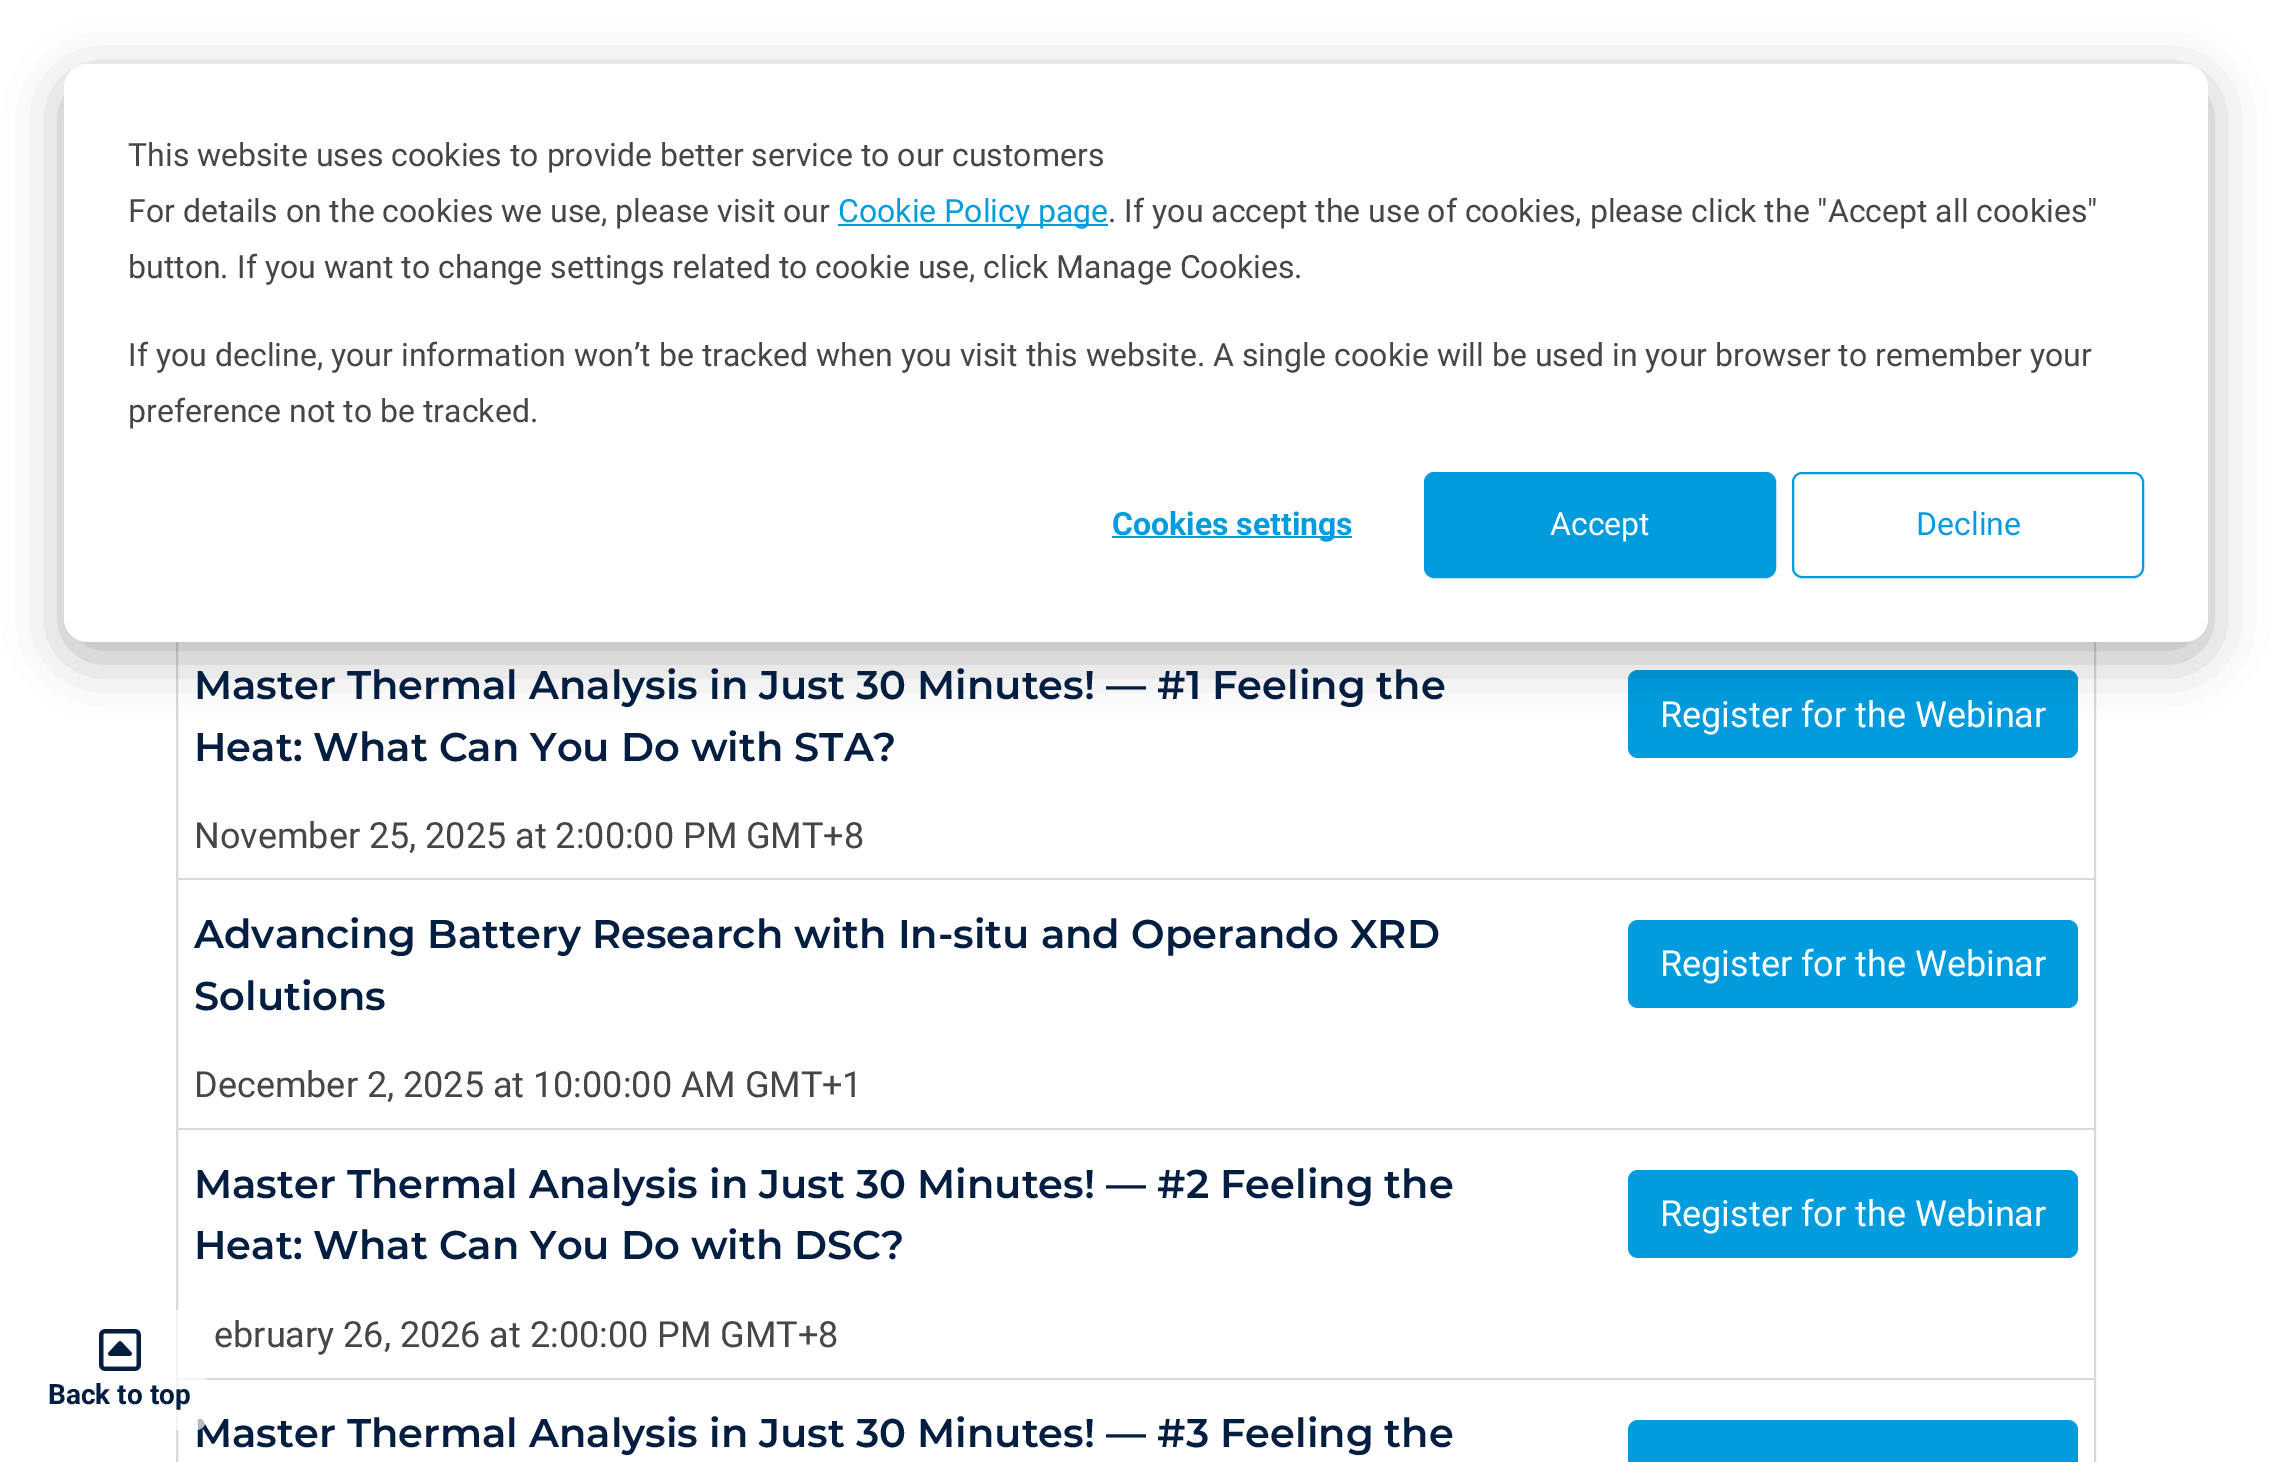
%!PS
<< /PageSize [2271 1462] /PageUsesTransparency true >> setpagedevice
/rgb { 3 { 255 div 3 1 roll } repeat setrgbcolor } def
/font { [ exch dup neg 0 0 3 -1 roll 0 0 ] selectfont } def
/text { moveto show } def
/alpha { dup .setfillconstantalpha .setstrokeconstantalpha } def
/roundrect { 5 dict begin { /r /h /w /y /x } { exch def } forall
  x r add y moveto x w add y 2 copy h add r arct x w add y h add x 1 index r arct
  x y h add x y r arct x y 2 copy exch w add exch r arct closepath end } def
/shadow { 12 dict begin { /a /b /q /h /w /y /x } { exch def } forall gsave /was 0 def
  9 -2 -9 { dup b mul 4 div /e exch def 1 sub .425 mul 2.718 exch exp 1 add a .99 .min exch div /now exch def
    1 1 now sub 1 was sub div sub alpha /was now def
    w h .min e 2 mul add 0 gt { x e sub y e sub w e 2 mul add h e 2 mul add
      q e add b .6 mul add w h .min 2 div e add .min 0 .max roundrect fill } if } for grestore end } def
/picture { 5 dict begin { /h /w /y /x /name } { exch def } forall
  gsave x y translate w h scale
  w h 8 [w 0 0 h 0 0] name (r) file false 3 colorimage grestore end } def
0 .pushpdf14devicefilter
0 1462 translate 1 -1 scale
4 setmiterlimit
255 255 255 rgb
0 0 2271 1462 rectfill
217 217 217 rgb
2 setlinewidth
177 637 1918 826 rectstroke
0 156 222 rgb
1628 670 450 88 10 roundrect fill
0 0 0 rgb
64 80 2144 578 24 28 0.28 shadow
255 255 255 rgb
64 64 2144 578 24 roundrect fill
0 156 222 rgb
838 224 270 2 rectfill
1112 536 240 2 rectfill
1425 473 350 104 9 roundrect gsave fill grestore
stroke
1793 473 350 104 9 roundrect stroke
217 217 217 rgb
178 878 1916 2 rectfill
178 1128 1916 2 rectfill
0 156 222 rgb
1628 920 450 88 10 roundrect fill
217 217 217 rgb
178 1378 1916 2 rectfill
0 156 222 rgb
1628 1170 450 88 10 roundrect fill
1628 1420 450 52 10 roundrect fill
/Roboto-Regular 32 font
70 70 70 rgb
(This website uses cookies to provide better service to our customers) 128 166 text
(For details on the cookies we use, please visit our) 128 222 text
0 156 222 rgb
(Cookie Policy page) 838 222 text
70 70 70 rgb
(. If you accept the use of cookies, please click the "Accept all cookies") 1108 222 text
(button. If you want to change settings related to cookie use, click Manage Cookies.) 128 278 text
(If you decline, your information won’t be tracked when you visit this website. A single cookie will be used in your browser to remember your) 128 366 text
(preference not to be tracked.) 128 422 text
/Roboto-Bold 32 font
0 156 222 rgb
(Cookies settings) 1112 535 text
/Roboto-Regular 32 font
255 255 255 rgb
(Accept) 1550 535 text
0 156 222 rgb
(Decline) 1916 535 text
/Montserrat-SemiBold 40 font
4 30 66 rgb
(Master Thermal Analysis in Just 30 Minutes! — #1 Feeling the) 194 699 text
(Heat: What Can You Do with STA?) 194 761 text
/Roboto-Regular 36 font
70 70 70 rgb
(November 25, 2025 at 2:00:00 PM GMT+8) 194 848 text
255 255 255 rgb
(Register for the Webinar) 1660 727 text
/Montserrat-SemiBold 40 font
4 30 66 rgb
(Advancing Battery Research with In-situ and Operando XRD) 194 948 text
(Solutions) 194 1010 text
/Roboto-Regular 36 font
70 70 70 rgb
(December 2, 2025 at 10:00:00 AM GMT+1) 194 1097 text
255 255 255 rgb
(Register for the Webinar) 1660 976 text
/Montserrat-SemiBold 40 font
4 30 66 rgb
(Master Thermal Analysis in Just 30 Minutes! — #2 Feeling the) 194 1198 text
(Heat: What Can You Do with DSC?) 194 1259 text
/Roboto-Regular 36 font
70 70 70 rgb
(ebruary 26, 2026 at 2:00:00 PM GMT+8) 214 1347 text
255 255 255 rgb
(Register for the Webinar) 1660 1226 text
/Montserrat-SemiBold 40 font
4 30 66 rgb
(Master Thermal Analysis in Just 30 Minutes! — #3 Feeling the) 194 1447 text
0.7 alpha
255 255 255 rgb
32 1310 174 120 10 roundrect fill
1 alpha
(img_01.rgb) 99 1329 42 42 picture
/Roboto-Bold 28 font
4 30 66 rgb
(Back to top) 48 1404 text
.poppdf14devicefilter showpage
